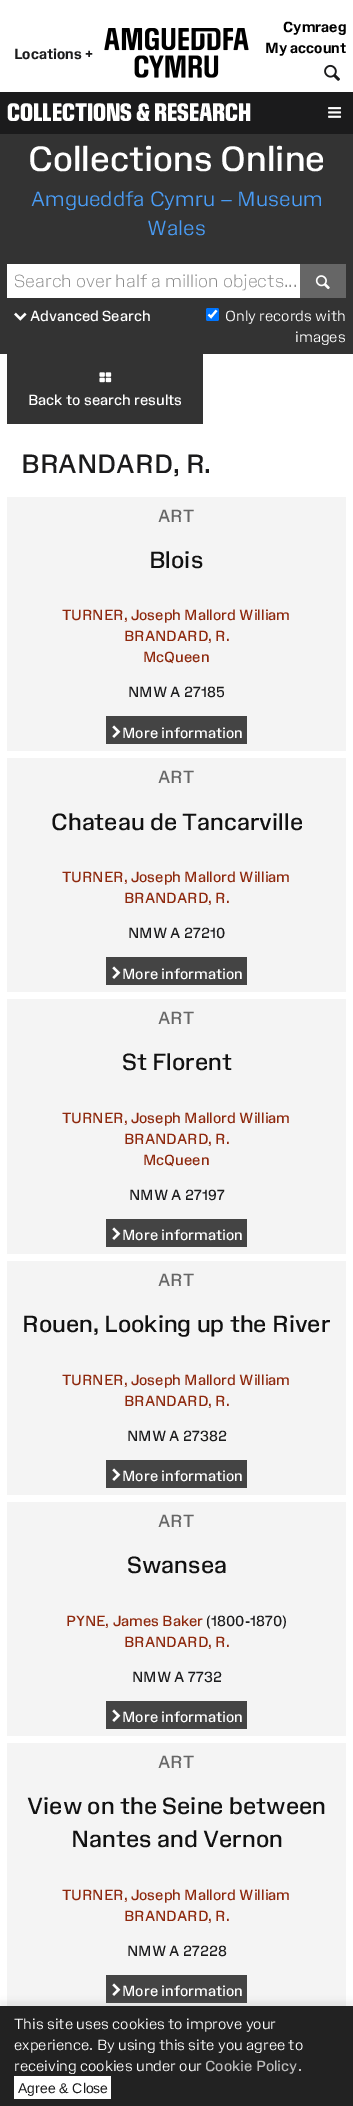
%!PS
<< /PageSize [353 2106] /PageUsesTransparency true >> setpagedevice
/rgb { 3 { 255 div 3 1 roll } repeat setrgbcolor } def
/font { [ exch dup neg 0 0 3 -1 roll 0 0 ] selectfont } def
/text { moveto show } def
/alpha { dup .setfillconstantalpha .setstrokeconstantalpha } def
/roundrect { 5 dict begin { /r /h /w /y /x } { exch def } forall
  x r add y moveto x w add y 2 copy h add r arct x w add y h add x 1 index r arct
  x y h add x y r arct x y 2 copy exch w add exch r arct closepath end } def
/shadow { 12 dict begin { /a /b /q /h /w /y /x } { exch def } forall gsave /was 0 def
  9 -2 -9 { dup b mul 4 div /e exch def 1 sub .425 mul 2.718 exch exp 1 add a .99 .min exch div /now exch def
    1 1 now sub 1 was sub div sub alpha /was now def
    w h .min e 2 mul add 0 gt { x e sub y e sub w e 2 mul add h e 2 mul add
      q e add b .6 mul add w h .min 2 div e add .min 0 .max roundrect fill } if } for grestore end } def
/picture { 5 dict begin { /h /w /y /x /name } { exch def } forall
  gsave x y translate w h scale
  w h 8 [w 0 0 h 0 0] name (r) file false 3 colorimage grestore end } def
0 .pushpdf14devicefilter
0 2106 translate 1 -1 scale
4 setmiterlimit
255 255 255 rgb
0 0 353 2106 rectfill
(img_01.rgb) 104 28 145 50 picture
(img_02.rgb) 324 64 16 17 picture
27 27 28 rgb
0 92 353 42 rectfill
(img_03.rgb) 328 107 14 11 picture
51 51 51 rgb
0 134 353 220 rectfill
255 255 255 rgb
7 264 293 34 rectfill
102 102 102 rgb
300 264 46 34 rectfill
(img_04.rgb) 315 275 15 15 picture
(img_05.rgb) 14 312 13 9 picture
0 117 255 rgb
206 308 13 13 2 roundrect fill
255 255 255 rgb
2.1 setlinewidth
208.5 314.5 moveto 2.5 2.5 rlineto 5.5 -6.5 rlineto stroke
51 51 51 rgb
7 354 196 70 rectfill
(img_06.rgb) 99 372 13 11 picture
244 244 244 rgb
7 497 339 254 rectfill
68 68 68 rgb
106 716 141 28 rectfill
(img_07.rgb) 112 725 9 13 picture
244 244 244 rgb
7 758 339 234 rectfill
68 68 68 rgb
106 957 141 28 rectfill
(img_07.rgb) 112 966 9 13 picture
244 244 244 rgb
7 999 339 255 rectfill
68 68 68 rgb
106 1219 141 28 rectfill
(img_07.rgb) 112 1227 9 13 picture
244 244 244 rgb
7 1261 339 234 rectfill
68 68 68 rgb
106 1460 141 28 rectfill
(img_07.rgb) 112 1468 9 13 picture
244 244 244 rgb
7 1502 339 234 rectfill
68 68 68 rgb
106 1701 141 28 rectfill
(img_07.rgb) 112 1709 9 13 picture
244 244 244 rgb
7 1743 339 263 rectfill
68 68 68 rgb
106 1975 141 28 rectfill
(img_07.rgb) 112 1983 9 13 picture
100 100 100 rgb
0 2001 353 100 0 2.5 0.1 shadow
34 34 34 rgb
0 2006 353 100 rectfill
255 255 255 rgb
14 2076 97 23 rectfill
/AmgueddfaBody-Bold 14 font
27 27 28 rgb
(Locations +) 14 59 text
0 0 0 rgb
(Cymraeg) 283 32 text
(My account) 265 53 text
/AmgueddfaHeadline-Regular 25.25 font
255 255 255 rgb
(COLLECTIONS & RESEARCH) 7 121 text
/AmgueddfaBody-Regular 33.5 font
(Collections Online) 28 171 text
/AmgueddfaBody-Light 19.6 font
73 156 245 rgb
(Amgueddfa Cymru – Museum) 31 206 text
(Wales) 147 235 text
/AmgueddfaBody-Thin 16.75 font
136 136 136 rgb
(Search over half a million objects...) 14 287 text
/AmgueddfaBody-Regular 14 font
255 255 255 rgb
(Advanced Search) 30 321 text
/AmgueddfaBody-Light 14 font
(Only records with) 225 321 text
(images) 295 342 text
/AmgueddfaBody-Regular 14 font
(Back to search results) 28 405 text
/AmgueddfaBody-Regular 25.25 font
27 27 28 rgb
(BRANDARD, R.) 21 473 text
/AmgueddfaBody-Regular 16.75 font
102 102 102 rgb
(ART) 158 522 text
/AmgueddfaBody-Regular 22.4 font
17 17 17 rgb
(Blois) 149 568 text
/AmgueddfaBody-Regular 14 font
142 41 14 rgb
(TURNER, Joseph Mallord William) 62 620 text
(BRANDARD, R.) 124 641 text
(McQueen) 143 662 text
27 27 28 rgb
(NMW A 27185) 128 697 text
255 255 255 rgb
(More information) 122 738 text
/AmgueddfaBody-Regular 16.75 font
102 102 102 rgb
(ART) 158 783 text
/AmgueddfaBody-Regular 22.4 font
17 17 17 rgb
(Chateau de Tancarville) 51 830 text
/AmgueddfaBody-Regular 14 font
142 41 14 rgb
(TURNER, Joseph Mallord William) 62 882 text
(BRANDARD, R.) 124 903 text
27 27 28 rgb
(NMW A 27210) 128 938 text
255 255 255 rgb
(More information) 122 979 text
/AmgueddfaBody-Regular 16.75 font
102 102 102 rgb
(ART) 158 1024 text
/AmgueddfaBody-Regular 22.4 font
17 17 17 rgb
(St Florent) 122 1070 text
/AmgueddfaBody-Regular 14 font
142 41 14 rgb
(TURNER, Joseph Mallord William) 62 1123 text
(BRANDARD, R.) 124 1144 text
(McQueen) 143 1165 text
27 27 28 rgb
(NMW A 27197) 129 1200 text
255 255 255 rgb
(More information) 122 1240 text
/AmgueddfaBody-Regular 16.75 font
102 102 102 rgb
(ART) 158 1286 text
/AmgueddfaBody-Regular 22.4 font
17 17 17 rgb
(Rouen, Looking up the River) 22 1332 text
/AmgueddfaBody-Regular 14 font
142 41 14 rgb
(TURNER, Joseph Mallord William) 62 1385 text
(BRANDARD, R.) 124 1406 text
27 27 28 rgb
(NMW A 27382) 127 1441 text
255 255 255 rgb
(More information) 122 1481 text
/AmgueddfaBody-Regular 16.75 font
102 102 102 rgb
(ART) 158 1527 text
/AmgueddfaBody-Regular 22.4 font
17 17 17 rgb
(Swansea) 127 1573 text
/AmgueddfaBody-Regular 14 font
142 41 14 rgb
(PYNE, James Baker) 66 1626 text
27 27 28 rgb
(\(1800-1870\)) 206 1626 text
142 41 14 rgb
(BRANDARD, R.) 124 1647 text
27 27 28 rgb
(NMW A 7732) 132 1682 text
255 255 255 rgb
(More information) 122 1722 text
/AmgueddfaBody-Regular 16.75 font
102 102 102 rgb
(ART) 158 1768 text
/AmgueddfaBody-Regular 22.4 font
17 17 17 rgb
(View on the Seine between) 27 1814 text
(Nantes and Vernon) 71 1847 text
/AmgueddfaBody-Regular 14 font
142 41 14 rgb
(TURNER, Joseph Mallord William) 62 1900 text
(BRANDARD, R.) 124 1921 text
27 27 28 rgb
(NMW A 27228) 127 1956 text
255 255 255 rgb
(More information) 122 1996 text
/AmgueddfaBody-Light 14 font
(This site uses cookies to improve your) 14 2029 text
(experience. By using this site you agree to) 14 2050 text
(receiving cookies under our) 14 2071 text
/AmgueddfaBody-Regular 14 font
187 187 187 rgb
(Cookie Policy) 205 2071 text
/AmgueddfaBody-Light 14 font
255 255 255 rgb
(.) 298 2071 text
/LiberationSans-Regular 14 font
27 27 28 rgb
(Agree & Close) 18 2093 text
.poppdf14devicefilter showpage
